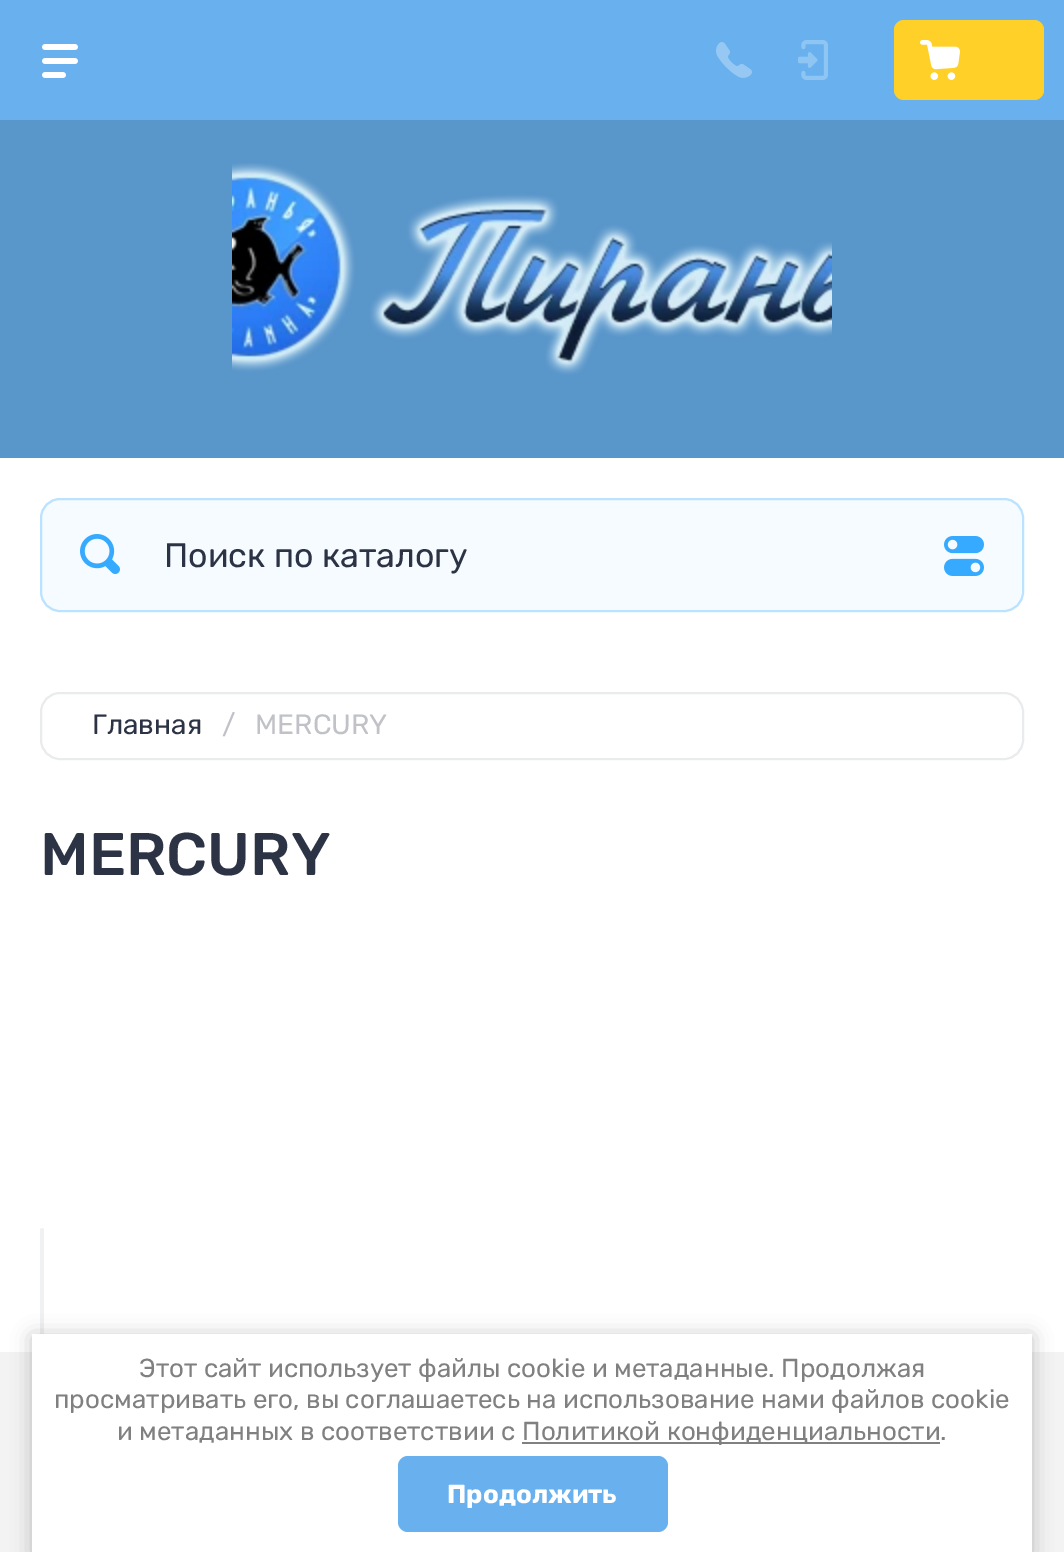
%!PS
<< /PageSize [1064 1552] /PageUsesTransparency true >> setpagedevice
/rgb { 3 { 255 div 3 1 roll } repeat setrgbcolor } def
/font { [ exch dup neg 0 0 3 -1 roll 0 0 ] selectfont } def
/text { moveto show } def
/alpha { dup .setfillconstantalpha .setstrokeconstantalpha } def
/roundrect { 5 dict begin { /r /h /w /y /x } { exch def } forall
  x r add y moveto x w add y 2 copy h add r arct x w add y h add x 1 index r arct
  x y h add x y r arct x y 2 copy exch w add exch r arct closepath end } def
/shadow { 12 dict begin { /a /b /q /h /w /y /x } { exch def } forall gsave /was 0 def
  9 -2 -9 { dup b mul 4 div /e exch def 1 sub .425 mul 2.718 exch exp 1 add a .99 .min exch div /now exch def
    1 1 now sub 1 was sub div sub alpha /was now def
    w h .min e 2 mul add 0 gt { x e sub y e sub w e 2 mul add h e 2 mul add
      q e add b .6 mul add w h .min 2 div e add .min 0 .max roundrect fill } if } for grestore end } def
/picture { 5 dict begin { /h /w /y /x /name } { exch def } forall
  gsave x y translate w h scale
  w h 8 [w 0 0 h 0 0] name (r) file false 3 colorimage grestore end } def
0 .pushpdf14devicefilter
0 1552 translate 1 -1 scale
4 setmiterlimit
255 255 255 rgb
0 0 1064 1552 rectfill
105 177 238 rgb
0 0 1064 120 rectfill
(img_01.rgb) 42 44 36 34 picture
(img_02.rgb) 716 42 36 36 picture
(img_03.rgb) 798 40 30 40 picture
255 208 39 rgb
894 20 150 80 10 roundrect fill
(img_04.rgb) 920 40 40 40 picture
89 150 202 rgb
0 120 1064 338 rectfill
(img_05.rgb) 232 163 600 212 picture
245 251 255 rgb
40 498 984 114 20 roundrect fill
0.3 alpha
53 170 255 rgb
2 setlinewidth
41 499 982 112 19 roundrect stroke
1 alpha
(img_06.rgb) 80 534 40 40 picture
(img_07.rgb) 944 536 40 40 picture
234 235 236 rgb
41 693 982 66 19 roundrect stroke
240 241 242 rgb
40 1228 4 124 2 roundrect fill
243 243 244 rgb
0 1352 1064 200 rectfill
0 0 0 rgb
32 1336 1000 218 0 10 0.23 shadow
255 255 255 rgb
32 1334 1000 218 rectfill
128 128 128 rgb
522 1442 418 2 rectfill
105 177 238 rgb
398 1456 270 76 10 roundrect fill
/Rubik-Regular 34 font
44 51 69 rgb
(Поиск по каталогу) 164 567 text
/Rubik-Regular 28 font
(Главная) 92 734 text
192 194 199 rgb
(/) 222 734 text
(MERCURY) 255 734 text
/Rubik-Medium 60 font
44 51 69 rgb
(MERCURY) 40 875 text
/Rubik-Regular 26 font
128 128 128 rgb
(Этот сайт использует файлы cookie и метаданные. Продолжая) 139 1377 text
(просматривать его, вы соглашаетесь на использование нами файлов cookie) 54 1408 text
(и метаданных в соответствии с) 117 1440 text
(Политикой конфиденциальности.) 522 1440 text
/Rubik-Bold 26 font
255 255 255 rgb
(Продолжить) 447 1503 text
.poppdf14devicefilter showpage
